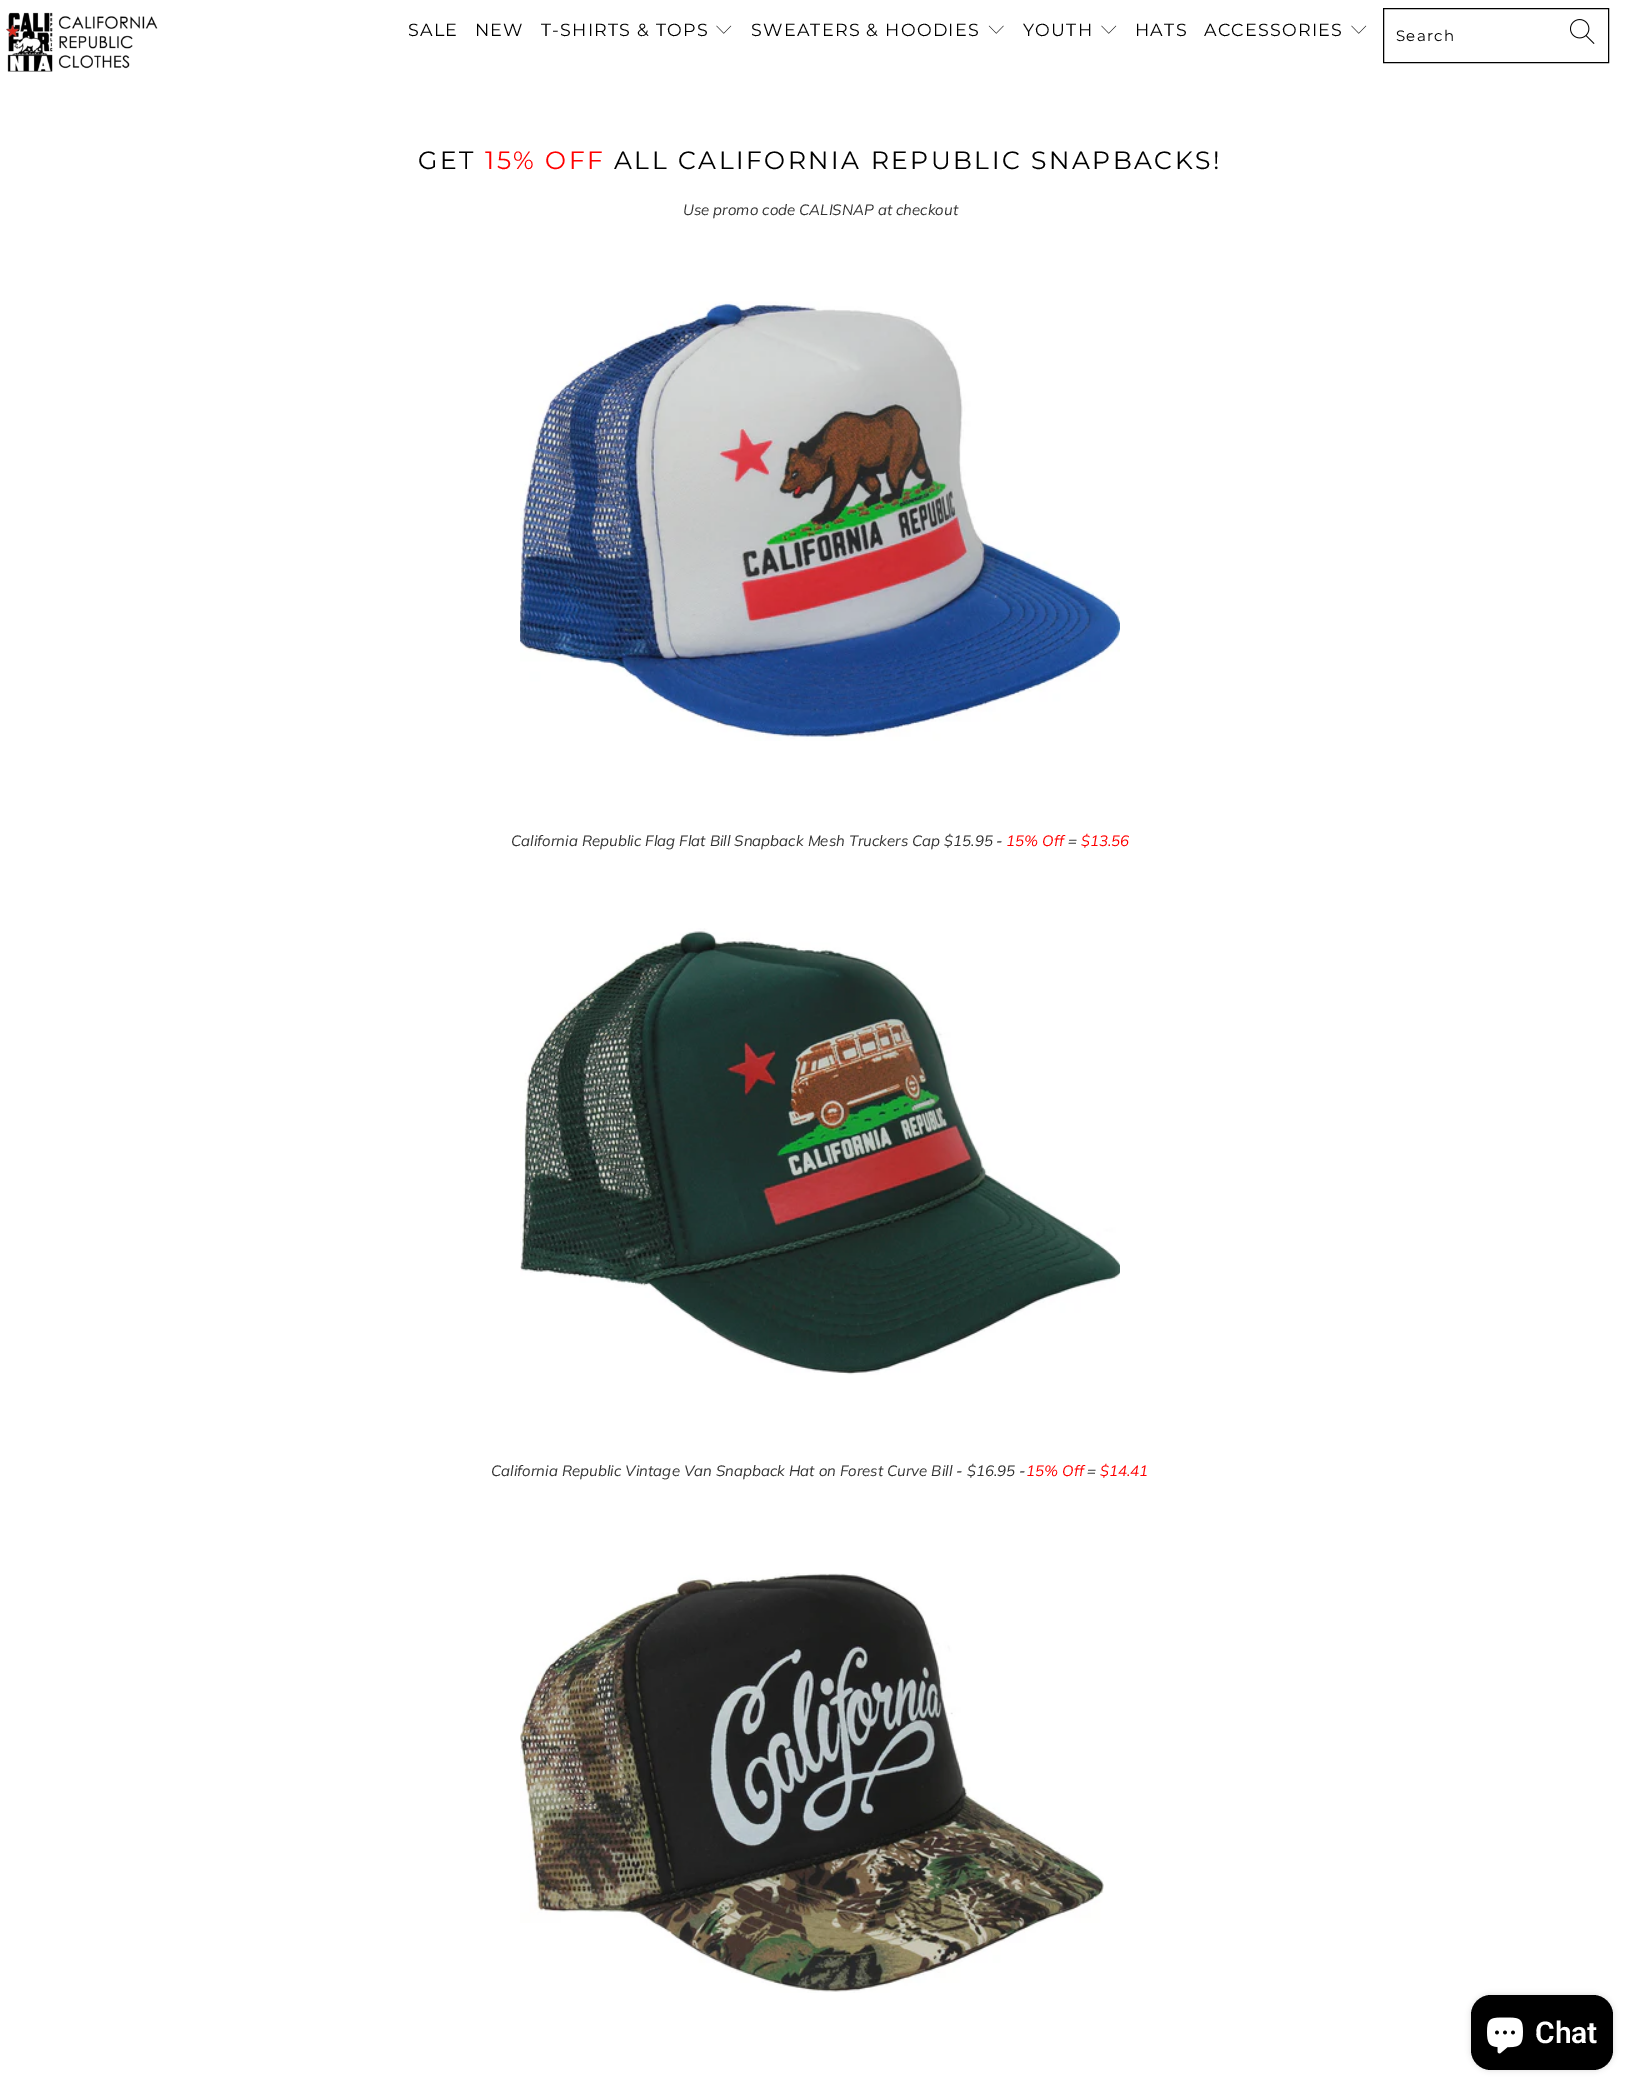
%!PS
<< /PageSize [1639 2096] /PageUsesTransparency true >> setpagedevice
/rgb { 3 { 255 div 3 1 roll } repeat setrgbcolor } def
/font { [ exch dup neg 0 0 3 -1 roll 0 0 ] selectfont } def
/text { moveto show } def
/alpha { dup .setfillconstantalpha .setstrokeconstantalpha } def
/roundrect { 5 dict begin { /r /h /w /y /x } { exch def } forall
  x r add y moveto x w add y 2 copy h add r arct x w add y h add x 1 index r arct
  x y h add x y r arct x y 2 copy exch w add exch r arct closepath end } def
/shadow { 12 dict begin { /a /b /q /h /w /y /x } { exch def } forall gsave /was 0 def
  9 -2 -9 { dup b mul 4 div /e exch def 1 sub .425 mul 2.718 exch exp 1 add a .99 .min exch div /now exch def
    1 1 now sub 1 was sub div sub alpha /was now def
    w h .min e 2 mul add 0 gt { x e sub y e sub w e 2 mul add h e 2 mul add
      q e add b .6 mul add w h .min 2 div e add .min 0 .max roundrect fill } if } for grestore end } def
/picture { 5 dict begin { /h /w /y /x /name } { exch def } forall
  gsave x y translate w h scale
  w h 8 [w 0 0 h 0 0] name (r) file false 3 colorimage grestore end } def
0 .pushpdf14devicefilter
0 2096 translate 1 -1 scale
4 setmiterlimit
255 255 255 rgb
0 0 1639 2096 rectfill
(img_01.rgb) 6 12 152 60 picture
(img_02.rgb) 716 25 16 9 picture
(img_03.rgb) 988 25 16 9 picture
(img_02.rgb) 1101 25 16 9 picture
(img_02.rgb) 1351 25 16 9 picture
0 0 0 rgb
1383.5 8.5 225 54 rectstroke
(img_04.rgb) 1570 19 25 25 picture
(img_05.rgb) 520 301 600 440 picture
(img_06.rgb) 520 928 600 447 picture
(img_07.rgb) 520 1573 584 420 picture
1471 1995 142 75 20 3 0.15 shadow
1471 1995 142 75 20 roundrect fill
(img_08.rgb) 1487 2017 36 37 picture
/Montserrat-Regular 17.5 font
408 36 moveto 1.25 0 (SALE) ashow
475 36 moveto 1.25 0 (NEW) ashow
541 36 moveto 1.25 0 (T-SHIRTS & TOPS) ashow
751 36 moveto 1.25 0 (SWEATERS & HOODIES) ashow
1023 36 moveto 1.25 0 (YOUTH) ashow
1135 36 moveto 1.25 0 (HATS) ashow
1204 36 moveto 1.25 0 (ACCESSORIES) ashow
/Montserrat-Regular 15 font
1396 41 moveto 1.25 0 (Search) ashow
/Montserrat-Regular 25 font
418 169 moveto 2.5 0 (GET) ashow
255 0 0 rgb
485 169 moveto 2.5 0 (15% OFF) ashow
0 0 0 rgb
614 169 moveto 2.5 0 (ALL CALIFORNIA REPUBLIC SNAPBACKS!) ashow
/Muli-Italic 15 font
51 51 51 rgb
(Use promo code CALISNAP at checkout) 683 215 text
(California Republic Flag Flat Bill Snapback Mesh Truckers Cap $15.95 -) 511 846 text
255 0 0 rgb
(15% Off) 1006 846 text
51 51 51 rgb
(=) 1068 846 text
255 0 0 rgb
($13.56) 1081 846 text
51 51 51 rgb
(California Republic Vintage Van Snapback Hat on Forest Curve Bill - $16.95 -) 491 1476 text
255 0 0 rgb
(15% Off) 1026 1476 text
51 51 51 rgb
(=) 1087 1476 text
255 0 0 rgb
($14.41) 1100 1476 text
/Roboto-SemiBold 30 font
255 255 255 rgb
(Chat) 1535 2043 text
.poppdf14devicefilter showpage
